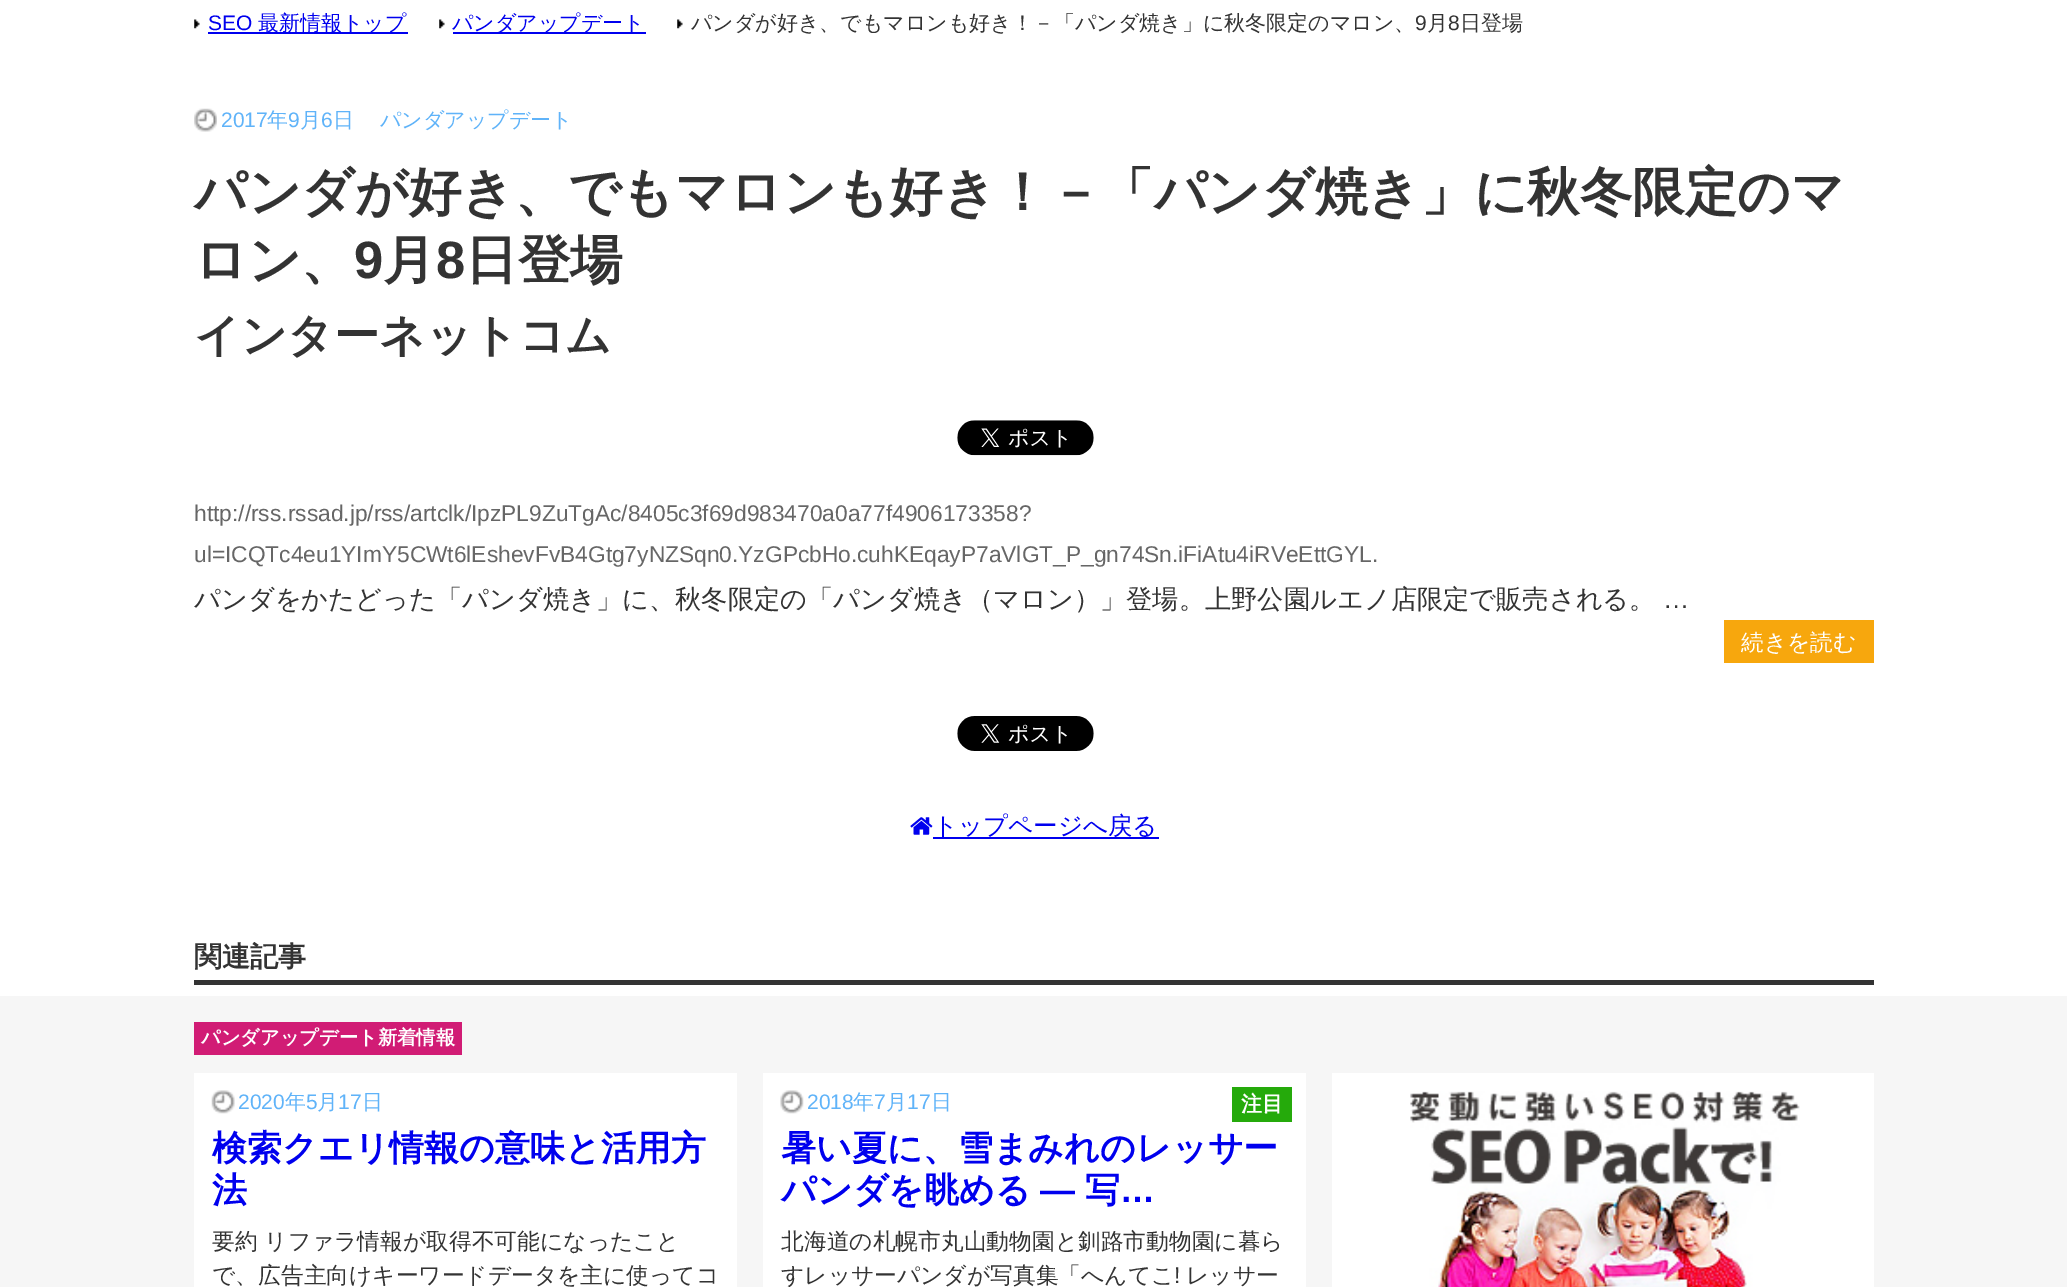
%!PS
<< /PageSize [2067 1287] >> setpagedevice
/rgb { 3 { 255 div 3 1 roll } repeat setrgbcolor } def
/font { [ exch dup neg 0 0 3 -1 roll 0 0 ] selectfont } def
/text { moveto show } def
/picture { 5 dict begin { /h /w /y /x /name } { exch def } forall
  gsave x y translate w h scale
  w h 8 [w 0 0 h 0 0] name (r) file false 3 colorimage grestore end } def
0 1287 translate 1 -1 scale
4 setmiterlimit
255 255 255 rgb
0 0 2067 1287 rectfill
(img_01.rgb) 194 19 6 10 picture
0 0 238 rgb
208 32 200 2 rectfill
(img_01.rgb) 439 19 6 10 picture
453 32 193 2 rectfill
(img_01.rgb) 677 19 6 10 picture
(img_02.rgb) 194 108 23 24 picture
(img_03.rgb) 957 420 137 36 picture
247 167 13 rgb
1724 620 150 43 rectfill
(img_04.rgb) 957 716 137 35 picture
(img_05.rgb) 910 817 23 18 picture
0 0 238 rgb
933 837 226 2 rectfill
51 51 51 rgb
194 980 1680 5 rectfill
246 246 246 rgb
0 996 2067 291 rectfill
209 28 117 rgb
194 1022 268 33 rectfill
255 255 255 rgb
194 1073 543 214 rectfill
(img_06.rgb) 211 1090 24 24 picture
763 1073 543 214 rectfill
(img_07.rgb) 780 1090 24 24 picture
37 170 11 rgb
1232 1087 60 35 rectfill
255 255 255 rgb
1332 1073 542 214 rectfill
(img_08.rgb) 1410 1091 390 196 picture
/LiberationSans-Regular 21 font
0 0 238 rgb
(SEO) 208 30 text
/WenQuanYiZenHei-Medium 21 font
(最新情報トップ) 258 30 text
(パンダアップデート) 452 30 text
51 51 51 rgb
(パンダが好き、でもマロンも好き！－「パンダ焼き」に秋冬限定のマロン、) 691 30 text
/LiberationSans-Regular 21 font
(9) 1415 30 text
/WenQuanYiZenHei-Medium 21 font
(月) 1427 30 text
/LiberationSans-Regular 21 font
(8) 1448 30 text
/WenQuanYiZenHei-Medium 21 font
(日登場) 1460 30 text
/LiberationSans-Regular 21 font
95 179 249 rgb
(2017) 221 127 text
/WenQuanYiZenHei-Medium 21 font
(年) 267 127 text
/LiberationSans-Regular 21 font
(9) 288 127 text
/WenQuanYiZenHei-Medium 21 font
(月) 300 127 text
/LiberationSans-Regular 21 font
(6) 321 127 text
/WenQuanYiZenHei-Medium 21 font
(日) 333 127 text
(パンダアップデート) 380 127 text
/WenQuanYiZenHei-Bold 52.5 font
51 51 51 rgb
(パンダが好き、でもマロンも好き！－「パンダ焼き」に秋冬限定のマ) 194 210 text
(ロン、) 194 278 text
/LiberationSans-Bold 52.5 font
(9) 354 278 text
/WenQuanYiZenHei-Bold 52.5 font
(月) 383 278 text
/LiberationSans-Bold 52.5 font
(8) 436 278 text
/WenQuanYiZenHei-Bold 52.5 font
(日登場) 465 278 text
/WenQuanYiZenHei-Bold 45.5 font
(インターネットコム) 194 351 text
/LiberationSans-Regular 22.75 font
102 102 102 rgb
(http://rss.rssad.jp/rss/artclk/IpzPL9ZuTgAc/8405c3f69d983470a0a77f4906173358?) 194 521 text
(ul=ICQTc4eu1YImY5CWt6lEshevFvB4Gtg7yNZSqn0.YzGPcbHo.cuhKEqayP7aVlGT_P_gn74Sn.iFiAtu4iRVeEttGYL.) 194 562 text
/WenQuanYiZenHei-Medium 26.25 font
51 51 51 rgb
(パンダをかたどった「パンダ焼き」に、秋冬限定の「パンダ焼き（マロン）」登場。上野公園ルエノ店限定で販売される。) 194 608 text
/LiberationSans-Regular 26.25 font
(…) 1663 608 text
/WenQuanYiZenHei-Medium 22.75 font
255 255 255 rgb
(続きを読む) 1741 650 text
/WenQuanYiZenHei-Medium 24.5 font
0 0 238 rgb
(トップページへ戻る) 933 834 text
/WenQuanYiZenHei-Bold 28 font
51 51 51 rgb
(関連記事) 194 966 text
/WenQuanYiZenHei-Bold 19.25 font
255 255 255 rgb
(パンダアップデート新着情報) 201 1044 text
/LiberationSans-Regular 21 font
95 179 249 rgb
(2020) 238 1109 text
/WenQuanYiZenHei-Medium 21 font
(年) 285 1109 text
/LiberationSans-Regular 21 font
(5) 306 1109 text
/WenQuanYiZenHei-Medium 21 font
(月) 317 1109 text
/LiberationSans-Regular 21 font
(17) 338 1109 text
/WenQuanYiZenHei-Medium 21 font
(日) 362 1109 text
/WenQuanYiZenHei-Bold 35 font
0 0 238 rgb
(検索クエリ情報の意味と活用方) 212 1160 text
(法) 212 1202 text
/WenQuanYiZenHei-Medium 22.75 font
51 51 51 rgb
(要約 リファラ情報が取得不可能になったこと) 212 1249 text
(で、広告主向けキーワードデータを主に使ってコ) 212 1283 text
/LiberationSans-Regular 21 font
95 179 249 rgb
(2018) 807 1109 text
/WenQuanYiZenHei-Medium 21 font
(年) 853 1109 text
/LiberationSans-Regular 21 font
(7) 874 1109 text
/WenQuanYiZenHei-Medium 21 font
(月) 886 1109 text
/LiberationSans-Regular 21 font
(17) 907 1109 text
/WenQuanYiZenHei-Medium 21 font
(日) 931 1109 text
/WenQuanYiZenHei-Bold 21 font
255 255 255 rgb
(注目) 1241 1111 text
/WenQuanYiZenHei-Bold 35 font
0 0 238 rgb
(暑い夏に、雪まみれのレッサー) 781 1160 text
(パンダを眺める) 781 1202 text
/LiberationSans-Bold 35 font
(―) 1040 1202 text
/WenQuanYiZenHei-Bold 35 font
(写) 1085 1202 text
/LiberationSans-Bold 35 font
(…) 1120 1202 text
/WenQuanYiZenHei-Medium 22.75 font
51 51 51 rgb
(北海道の札幌市丸山動物園と釧路市動物園に暮ら) 781 1249 text
(すレッサーパンダが写真集「へんてこ) 781 1283 text
/LiberationSans-Regular 22.75 font
(!) 1174 1283 text
/WenQuanYiZenHei-Medium 22.75 font
(レッサー) 1186 1283 text
showpage
